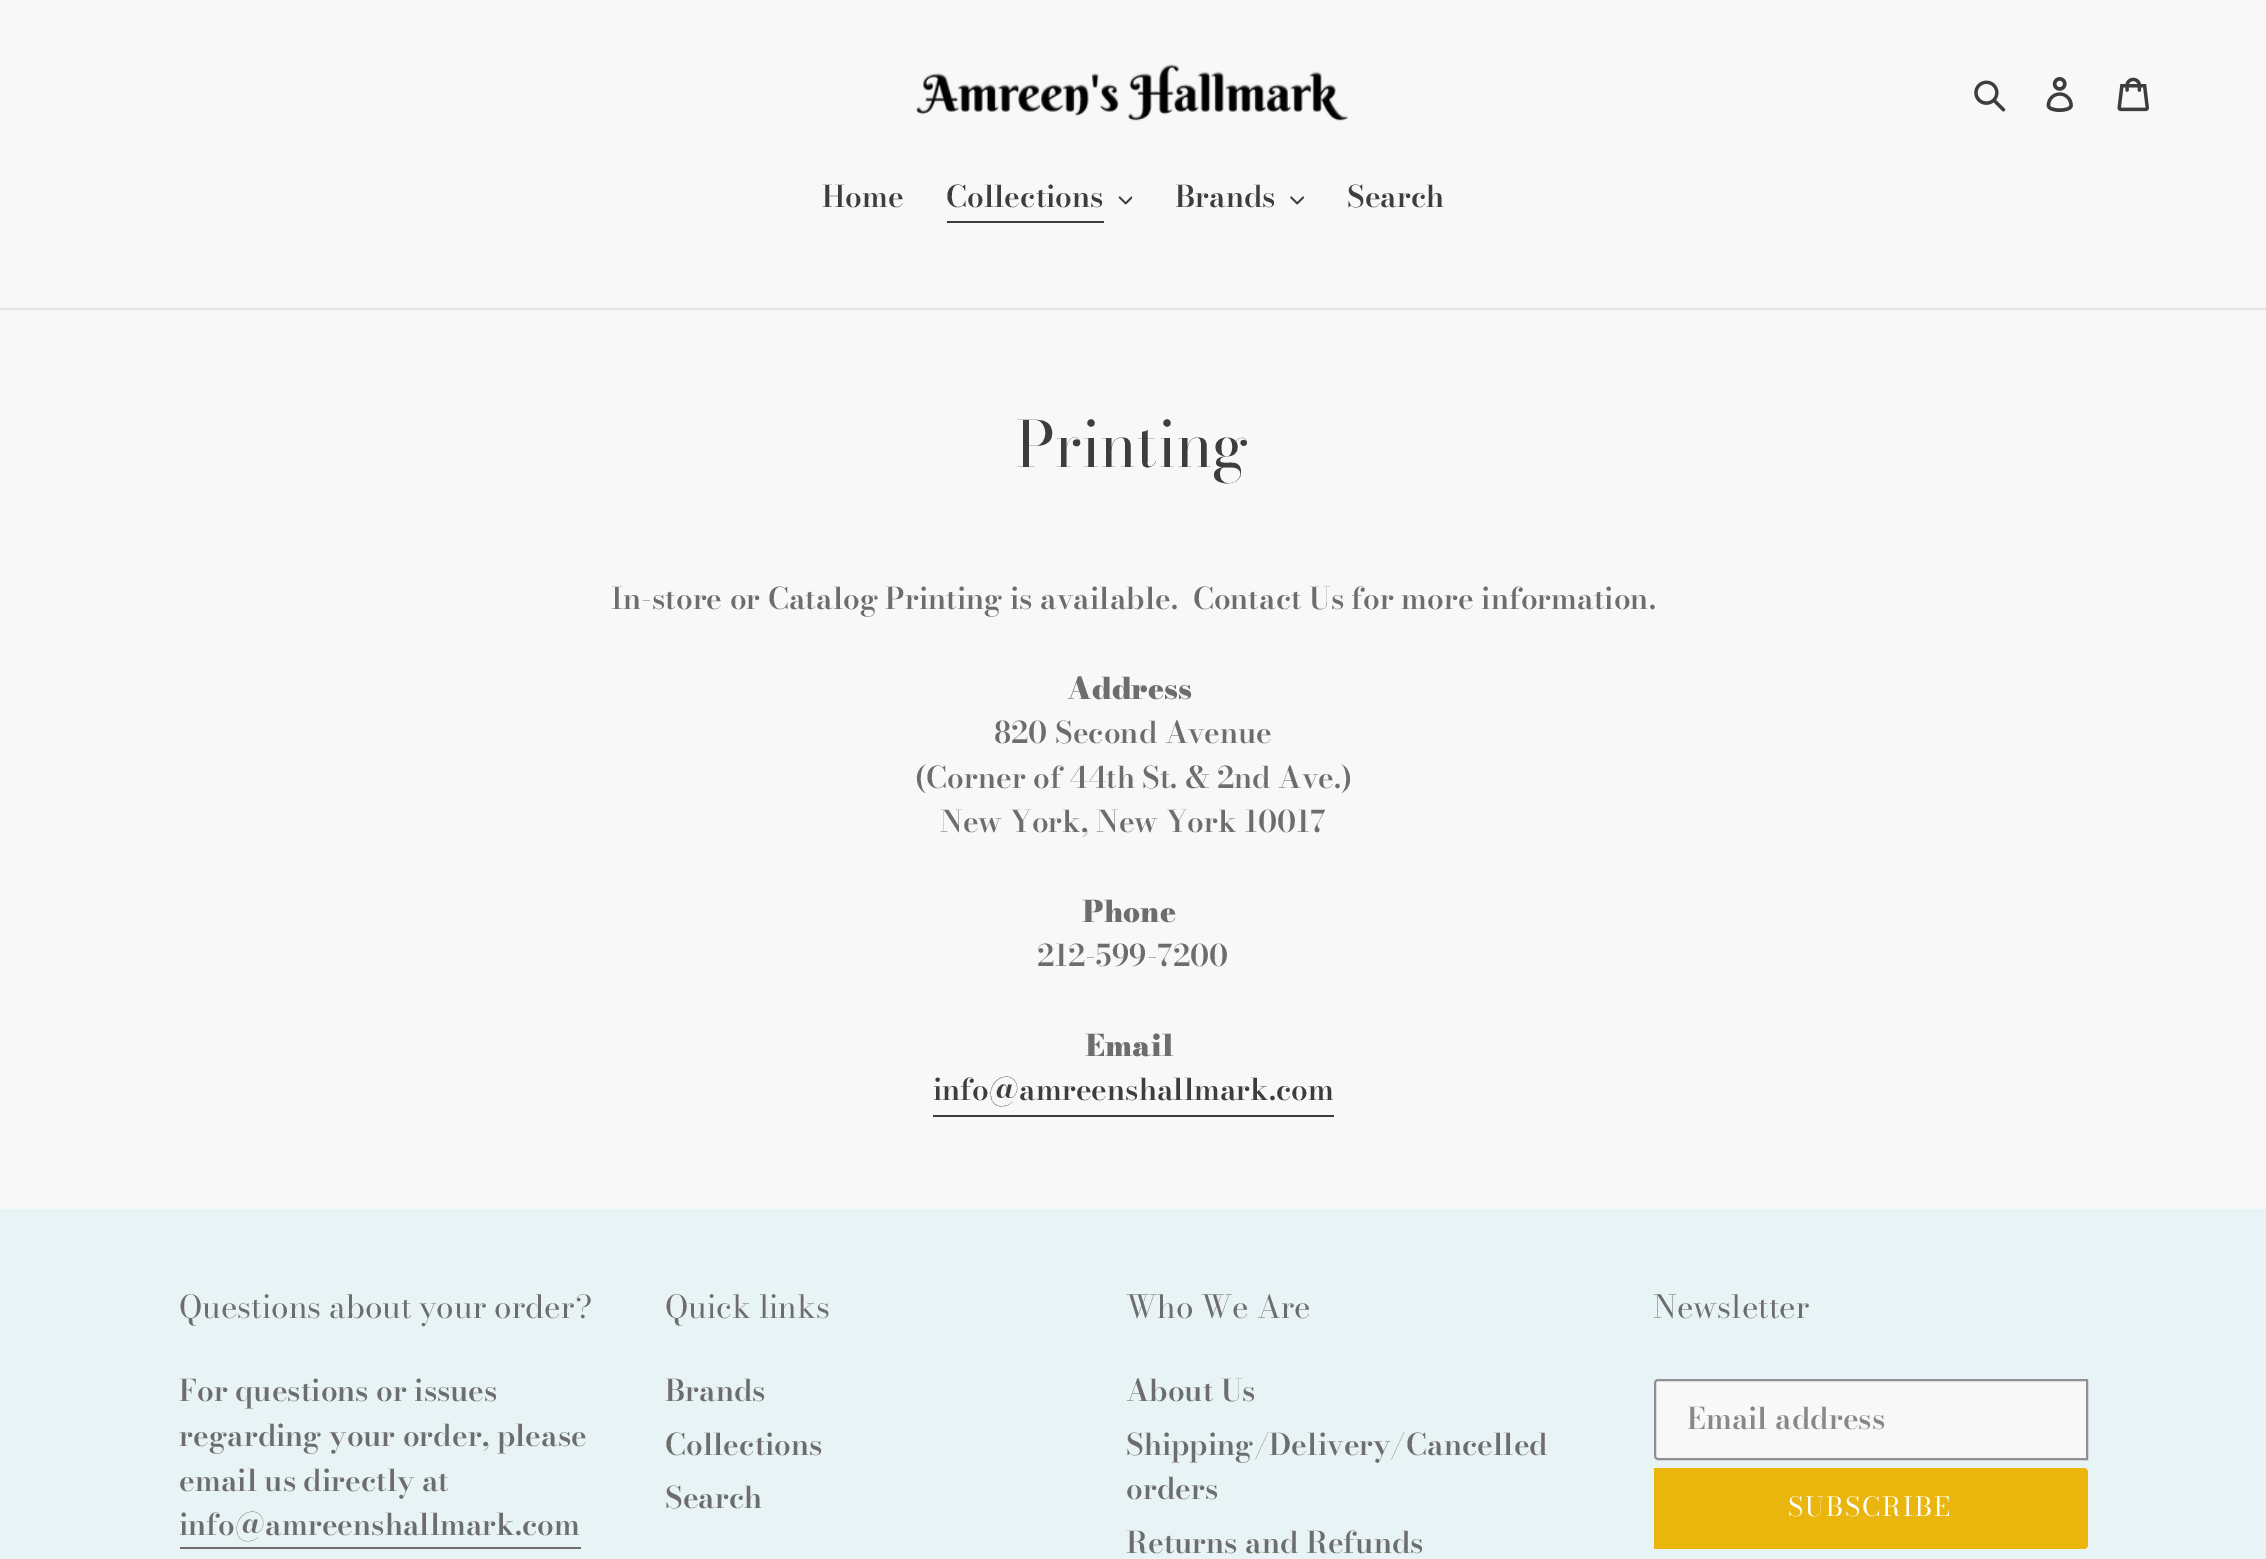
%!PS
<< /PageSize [2266 1559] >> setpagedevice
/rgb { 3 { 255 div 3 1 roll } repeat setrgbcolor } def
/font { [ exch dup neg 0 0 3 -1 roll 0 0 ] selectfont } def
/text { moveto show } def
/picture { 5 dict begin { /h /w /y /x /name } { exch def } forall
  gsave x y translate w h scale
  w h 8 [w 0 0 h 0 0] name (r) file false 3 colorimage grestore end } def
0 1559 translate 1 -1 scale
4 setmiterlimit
248 248 248 rgb
0 0 2266 1559 rectfill
(img_01.rgb) 916 64 432 57 picture
(img_02.rgb) 1974 80 32 32 picture
(img_03.rgb) 2046 77 27 35 picture
(img_04.rgb) 2117 77 32 35 picture
228 228 228 rgb
0 308 2266 2 rectfill
61 61 61 rgb
947 221 157 2 rectfill
(img_05.rgb) 1118 196 14 9 picture
(img_06.rgb) 1290 196 14 9 picture
933 1115 401 2 rectfill
232 243 246 rgb
0 1209 2266 350 rectfill
109 109 109 rgb
180 1547 401 2 rectfill
248 248 248 rgb
1658 1380 moveto 429 0 rlineto 0 79 rlineto -429 0 rlineto -1.5 0 -3 -1.5 -3 -3 rcurveto 0 -73 rlineto 0 -1.5 1.5 -3 3 -3 rcurveto closepath gsave fill grestore
144 144 144 rgb
2 setlinewidth
stroke
234 181 12 rgb
1654 1468 moveto 430 0 rlineto 2 0 4 2 4 4 rcurveto 0 73 rlineto 0 2 -2 4 -4 4 rcurveto -430 0 rlineto closepath fill
/BodoniModa-SemiBold 29.75 font
61 61 61 rgb
(Home) 822 207 text
(Collections) 946 207 text
(Brands) 1175 207 text
(Search) 1347 207 text
/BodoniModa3-Regular 63 font
(Printing) 1016 467 text
/BodoniModa-SemiBold 29.75 font
109 109 109 rgb
(In-store or Catalog Printing is available.  Contact Us for more information.) 611 609 text
/BodoniModa-Black 29.75 font
(Address) 1067 699 text
/BodoniModa-SemiBold 29.75 font
(820 Second Avenue) 994 743 text
(\(Corner of 44th St. & 2nd Ave.\)) 915 788 text
(New York, New York 10017) 940 832 text
/BodoniModa-Black 29.75 font
(Phone) 1082 922 text
/BodoniModa-SemiBold 29.75 font
(212-599-7200) 1037 966 text
/BodoniModa-Black 29.75 font
(Email) 1085 1056 text
/BodoniModa-SemiBold 29.75 font
61 61 61 rgb
(info@amreenshallmark.com) 933 1100 text
/BodoniModa-Regular 31.5 font
109 109 109 rgb
(Questions about your order?) 179 1318 text
/BodoniModa-SemiBold 29.75 font
(For questions or issues) 179 1401 text
(regarding your order, please) 179 1446 text
(email us directly at) 179 1491 text
(info@amreenshallmark.com) 179 1535 text
/BodoniModa-Regular 31.5 font
(Quick links) 665 1318 text
/BodoniModa-SemiBold 29.75 font
(Brands) 665 1401 text
(Collections) 665 1455 text
(Search) 665 1508 text
/BodoniModa-Regular 31.5 font
(Who We Are) 1126 1318 text
/BodoniModa-SemiBold 29.75 font
(About Us) 1126 1401 text
(Shipping/Delivery/Cancelled) 1126 1455 text
(orders) 1126 1499 text
(Returns and Refunds) 1126 1553 text
/BodoniModa-Regular 31.5 font
(Newsletter) 1653 1318 text
/BodoniModa-SemiBold 29.75 font
136 136 136 rgb
(Email address) 1687 1429 text
/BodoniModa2-Regular 26.25 font
255 255 255 rgb
1788 1516 moveto 2 0 (SUBSCRIBE) ashow
showpage
